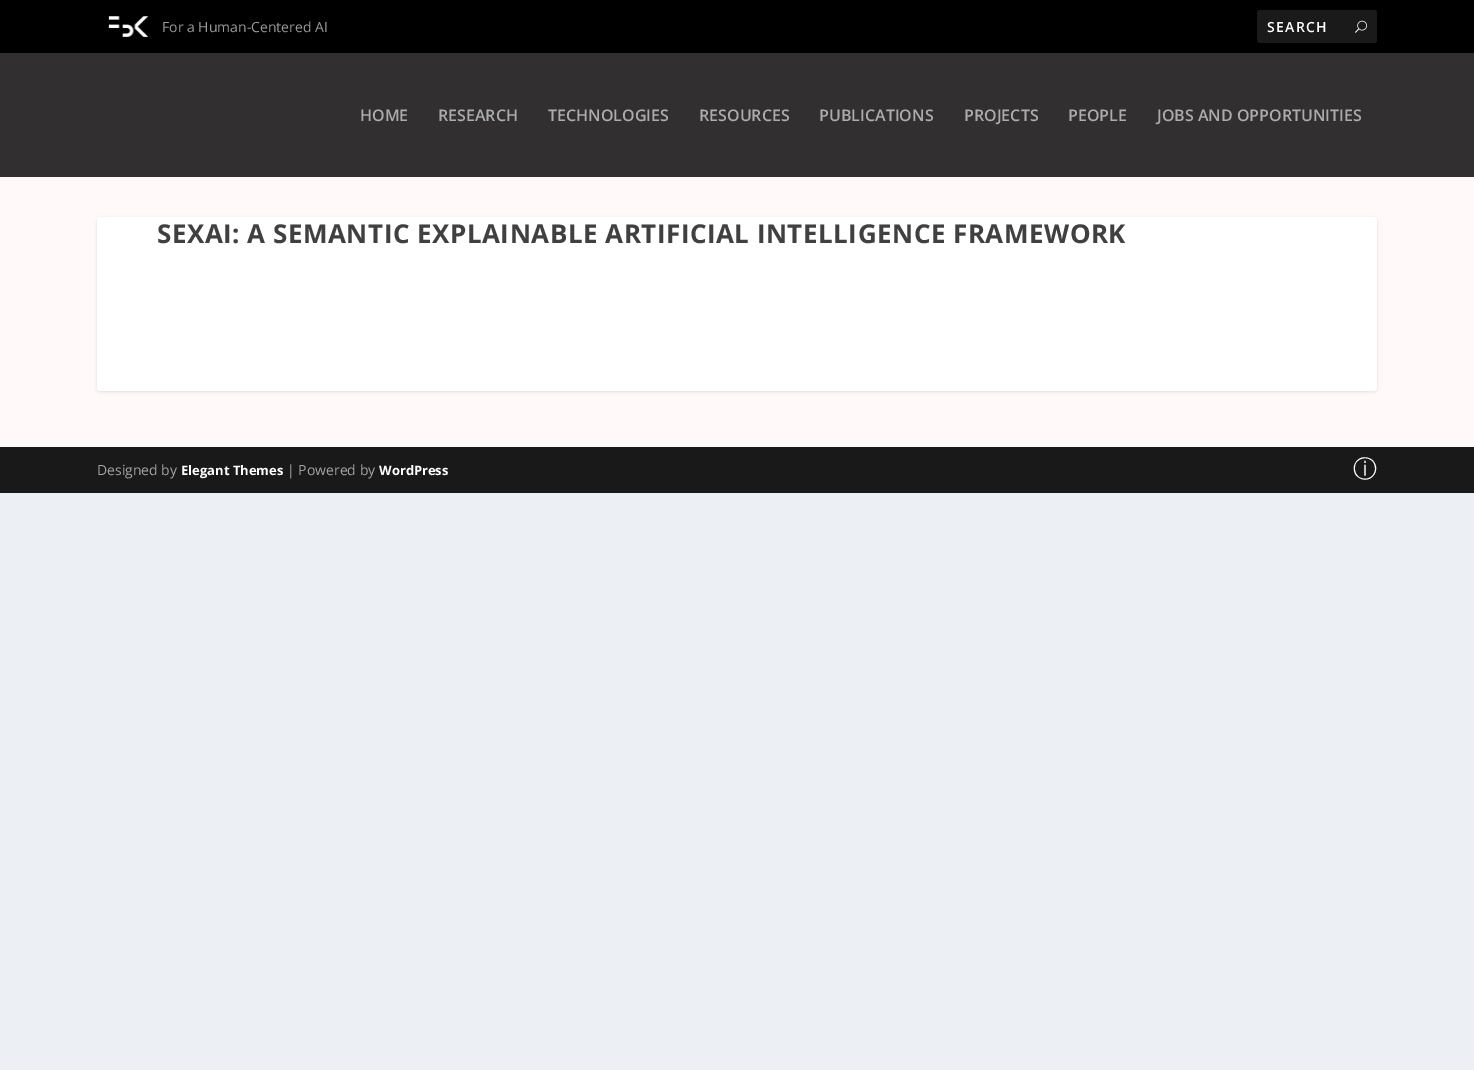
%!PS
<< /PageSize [1474 1070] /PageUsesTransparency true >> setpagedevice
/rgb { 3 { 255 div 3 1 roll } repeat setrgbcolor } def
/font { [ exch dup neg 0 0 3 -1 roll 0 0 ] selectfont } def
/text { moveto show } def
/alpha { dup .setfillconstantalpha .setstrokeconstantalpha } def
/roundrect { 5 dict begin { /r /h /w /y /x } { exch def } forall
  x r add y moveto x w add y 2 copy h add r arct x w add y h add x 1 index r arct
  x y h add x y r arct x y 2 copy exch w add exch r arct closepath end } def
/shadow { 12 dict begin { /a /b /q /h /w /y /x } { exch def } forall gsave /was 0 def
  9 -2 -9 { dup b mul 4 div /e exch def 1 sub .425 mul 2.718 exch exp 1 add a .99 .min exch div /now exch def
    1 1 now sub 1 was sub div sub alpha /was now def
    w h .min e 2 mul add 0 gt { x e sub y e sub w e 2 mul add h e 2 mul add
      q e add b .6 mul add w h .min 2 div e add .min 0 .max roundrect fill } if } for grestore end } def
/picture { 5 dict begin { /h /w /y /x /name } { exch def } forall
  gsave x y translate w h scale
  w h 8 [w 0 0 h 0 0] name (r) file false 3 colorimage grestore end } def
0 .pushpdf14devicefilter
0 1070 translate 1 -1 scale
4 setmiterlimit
236 240 245 rgb
0 0 1474 1070 rectfill
255 249 249 rgb
0 177 1474 270 rectfill
0 0 0 rgb
0 0 1474 53 rectfill
(img_01.rgb) 108 16 41 21 picture
26 26 26 rgb
1257 10 120 33 3 roundrect fill
(img_02.rgb) 1355 20 12 13 picture
49 47 47 rgb
0 53 1474 124 rectfill
0 0 0 rgb
97 218 1280 174 3 1.5 0.1 shadow
255 255 255 rgb
97 217 1280 174 3 roundrect fill
25 25 25 rgb
0 447 1474 46 rectfill
/OpenSans-Regular 14 font
153 153 153 rgb
(For a Human-Centered AI) 162 32 text
/OpenSans-SemiBold 14 font
255 255 255 rgb
1267 32 moveto 1.25 0 (SEARCH) ashow
/OpenSans-SemiBold 16 font
173 172 172 rgb
(HOME) 360 121 text
(RESEARCH) 438 121 text
(TECHNOLOGIES) 548 121 text
(RESOURCES) 699 121 text
(PUBLICATIONS) 819 121 text
(PROJECTS) 964 121 text
(PEOPLE) 1068 121 text
(JOBS AND OPPORTUNITIES) 1157 121 text
/OpenSans-Bold 26 font
64 64 64 rgb
157 243 moveto 0.5 0 (SEXAI: A SEMANTIC EXPLAINABLE ARTIFICIAL INTELLIGENCE FRAMEWORK) ashow
/OpenSans-Regular 14 font
163 163 163 rgb
(Designed by) 97 475 text
/OpenSans-Bold 13 font
255 255 255 rgb
(Elegant Themes) 181 475 text
/OpenSans-Regular 14 font
163 163 163 rgb
(| Powered by) 287 475 text
/OpenSans-Bold 13 font
255 255 255 rgb
(WordPress) 379 475 text
/WenQuanYiZenHei-Medium 24 font
(ⓘ) 1353 477 text
.poppdf14devicefilter showpage
